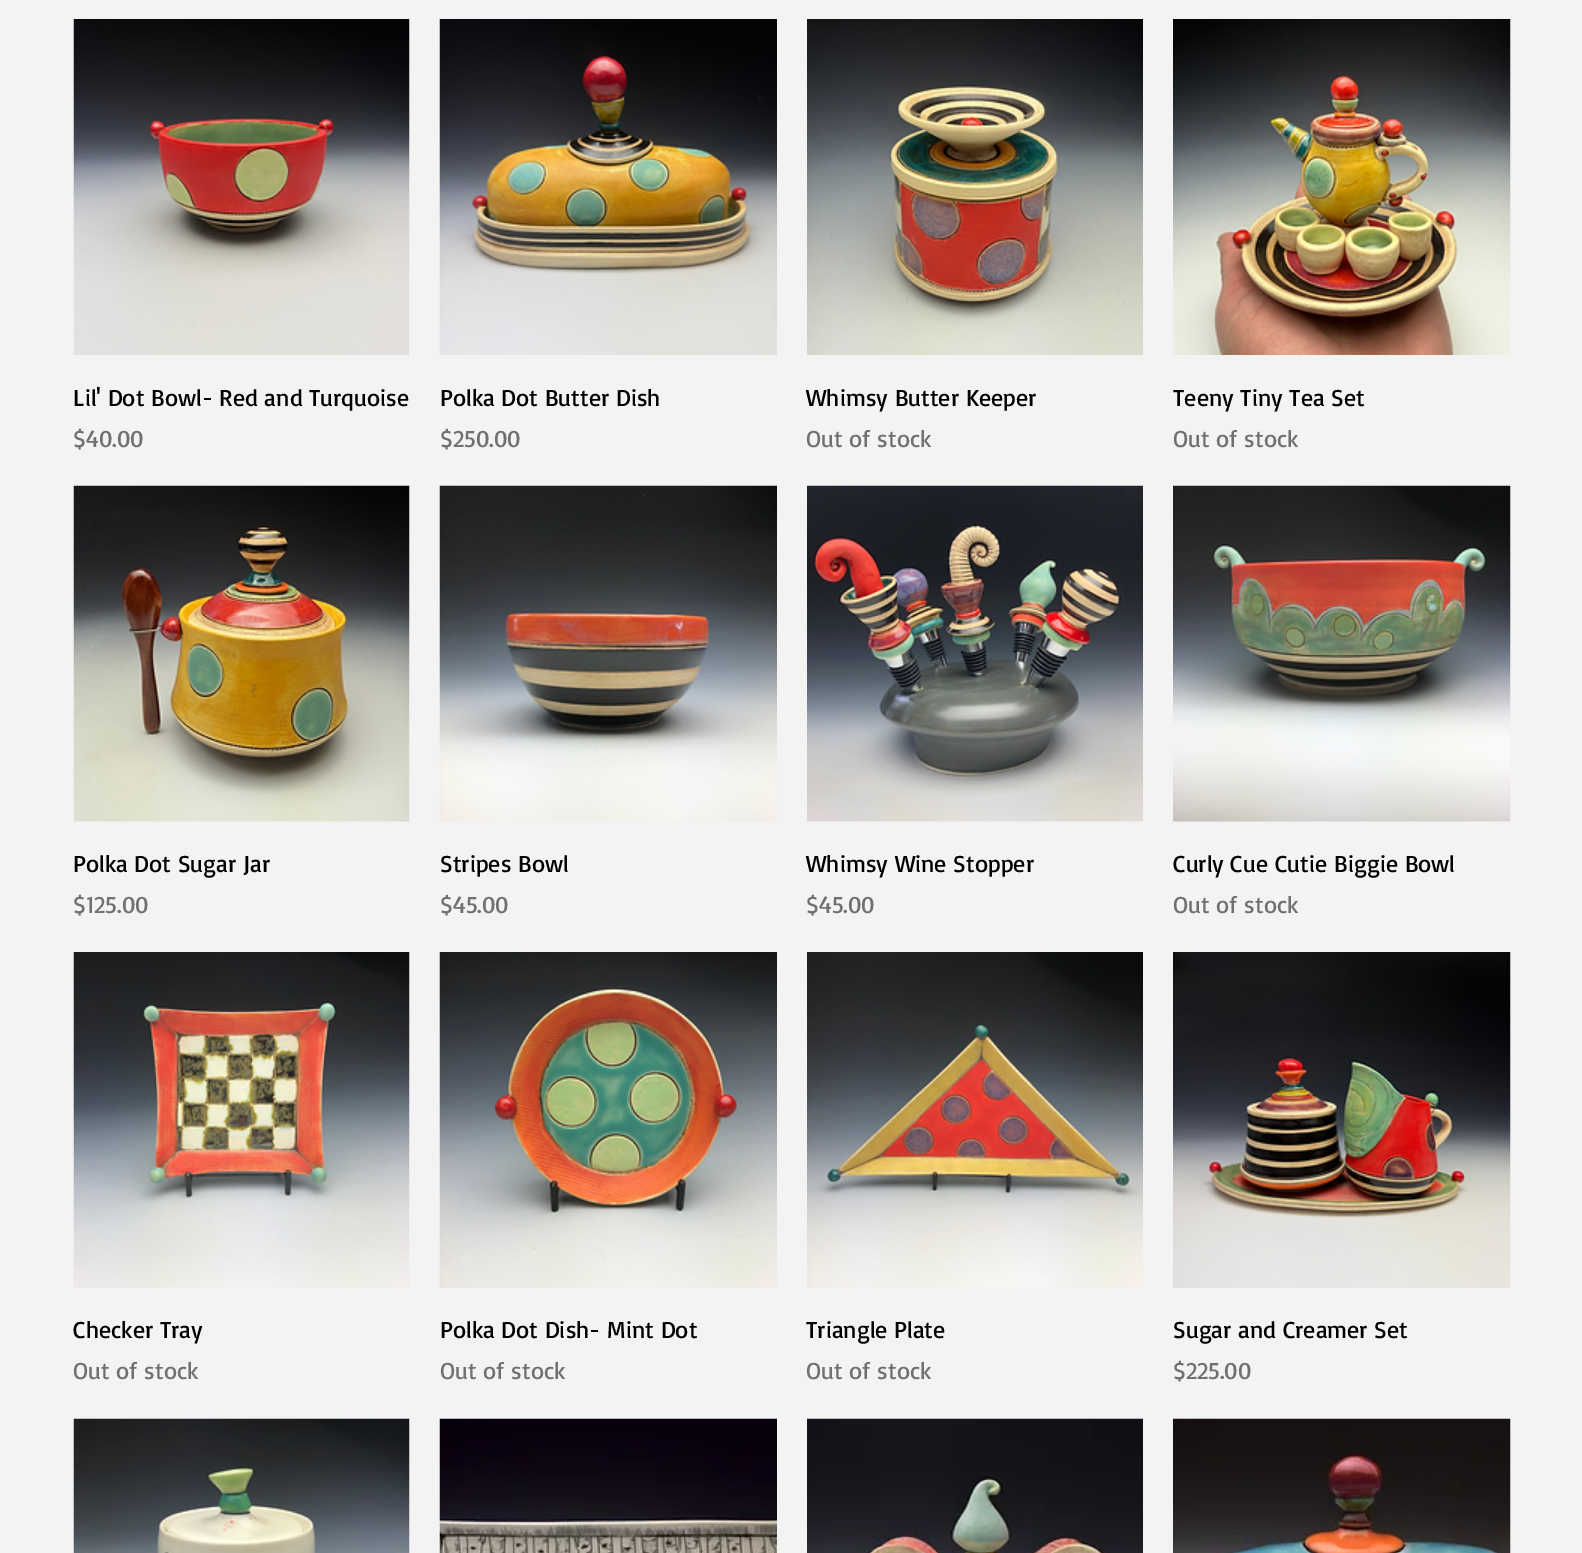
%!PS
<< /PageSize [1582 1553] >> setpagedevice
/rgb { 3 { 255 div 3 1 roll } repeat setrgbcolor } def
/font { [ exch dup neg 0 0 3 -1 roll 0 0 ] selectfont } def
/text { moveto show } def
/picture { 5 dict begin { /h /w /y /x /name } { exch def } forall
  gsave x y translate w h scale
  w h 8 [w 0 0 h 0 0] name (r) file false 3 colorimage grestore end } def
0 1553 translate 1 -1 scale
4 setmiterlimit
243 243 243 rgb
0 0 1582 1553 rectfill
(img_01.rgb) 73 19 337 336 picture
(img_02.rgb) 439 19 338 336 picture
(img_03.rgb) 807 19 336 336 picture
(img_04.rgb) 1173 19 338 336 picture
(img_05.rgb) 73 485 337 337 picture
(img_06.rgb) 439 485 338 337 picture
(img_07.rgb) 807 485 336 337 picture
(img_08.rgb) 1173 485 338 337 picture
(img_09.rgb) 73 952 337 336 picture
(img_10.rgb) 439 952 338 336 picture
(img_11.rgb) 807 952 336 336 picture
(img_12.rgb) 1173 952 338 336 picture
(img_13.rgb) 73 1418 337 135 picture
(img_14.rgb) 439 1418 338 135 picture
(img_15.rgb) 807 1418 336 135 picture
(img_16.rgb) 1173 1418 338 135 picture
/Basic-Regular 24 font
0 0 0 rgb
(Lil' Dot Bowl- Red and Turquoise) 73 406 text
113 112 112 rgb
($40.00) 73 447 text
0 0 0 rgb
(Polka Dot Butter Dish) 440 406 text
113 112 112 rgb
($250.00) 440 447 text
0 0 0 rgb
(Whimsy Butter Keeper) 806 406 text
113 112 112 rgb
(Out of stock) 806 447 text
0 0 0 rgb
(Teeny Tiny Tea Set) 1173 406 text
113 112 112 rgb
(Out of stock) 1173 447 text
0 0 0 rgb
(Polka Dot Sugar Jar) 73 872 text
113 112 112 rgb
($125.00) 73 913 text
0 0 0 rgb
(Stripes Bowl) 440 872 text
113 112 112 rgb
($45.00) 440 913 text
0 0 0 rgb
(Whimsy Wine Stopper) 806 872 text
113 112 112 rgb
($45.00) 806 913 text
0 0 0 rgb
(Curly Cue Cutie Biggie Bowl) 1173 872 text
113 112 112 rgb
(Out of stock) 1173 913 text
0 0 0 rgb
(Checker Tray) 73 1338 text
113 112 112 rgb
(Out of stock) 73 1379 text
0 0 0 rgb
(Polka Dot Dish- Mint Dot) 440 1338 text
113 112 112 rgb
(Out of stock) 440 1379 text
0 0 0 rgb
(Triangle Plate) 806 1338 text
113 112 112 rgb
(Out of stock) 806 1379 text
0 0 0 rgb
(Sugar and Creamer Set) 1173 1338 text
113 112 112 rgb
($225.00) 1173 1379 text
showpage
